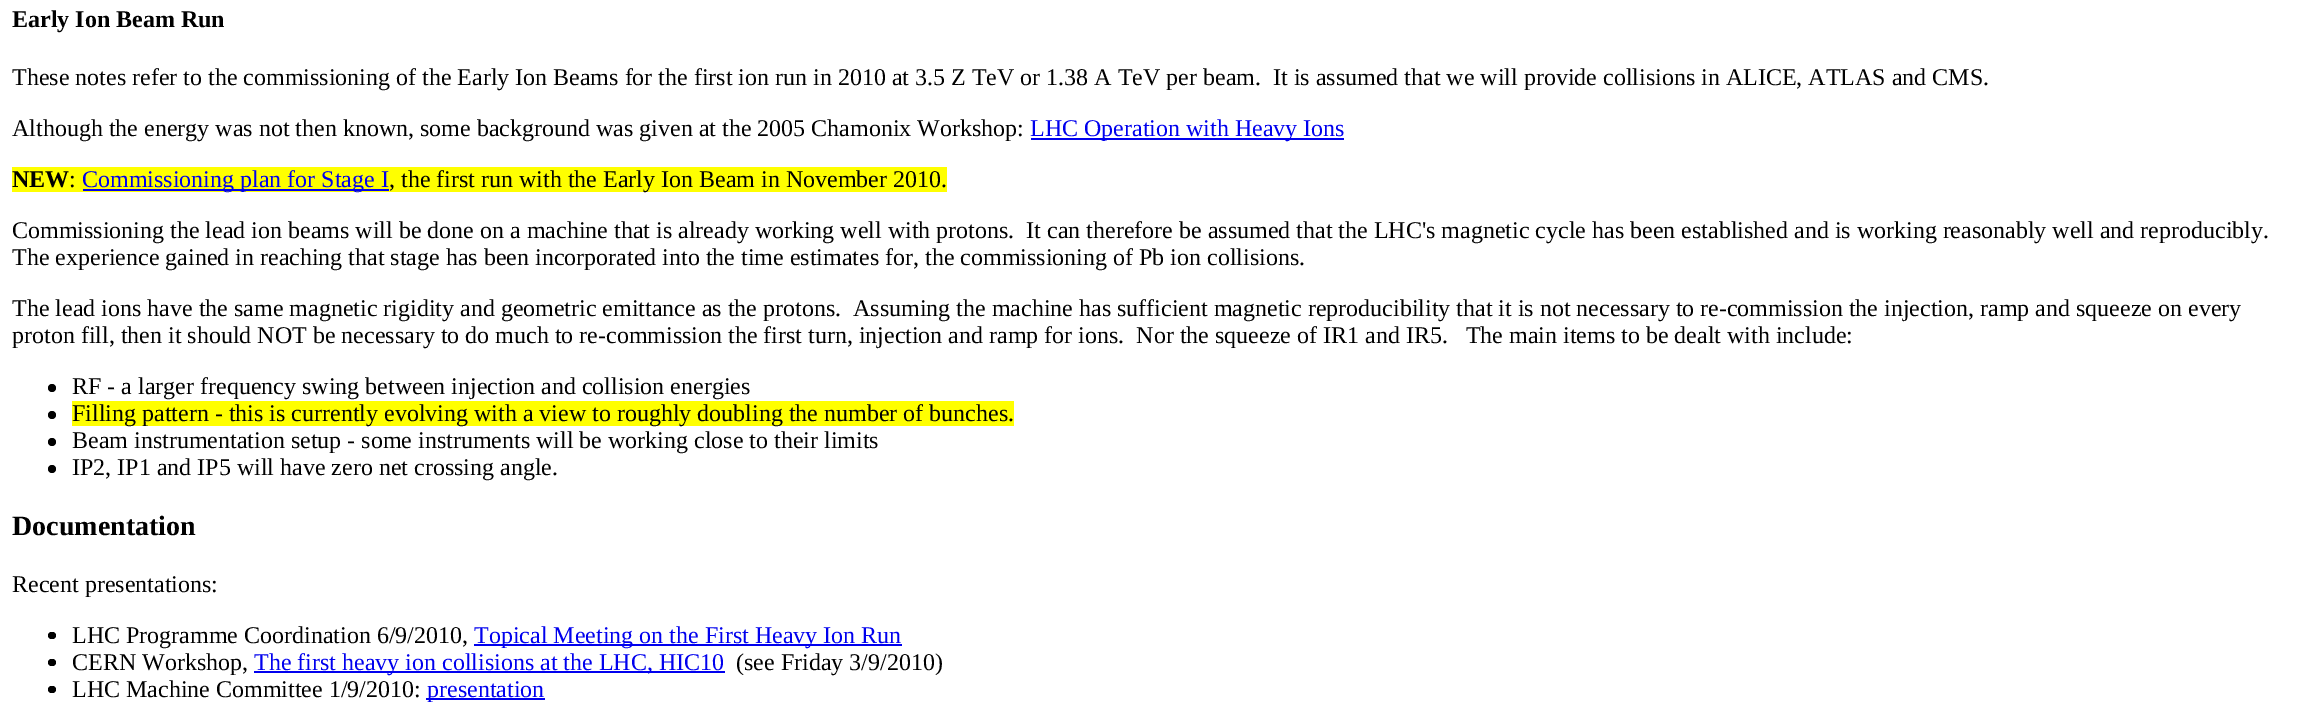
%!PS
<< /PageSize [2309 713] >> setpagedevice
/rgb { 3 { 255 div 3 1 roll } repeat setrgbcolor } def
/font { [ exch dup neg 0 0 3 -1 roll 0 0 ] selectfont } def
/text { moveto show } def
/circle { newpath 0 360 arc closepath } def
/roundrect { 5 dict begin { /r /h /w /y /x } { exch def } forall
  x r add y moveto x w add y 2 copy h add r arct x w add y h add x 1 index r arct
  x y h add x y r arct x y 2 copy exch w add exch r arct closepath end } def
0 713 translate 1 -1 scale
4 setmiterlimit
255 255 255 rgb
0 0 2309 713 rectfill
0 0 238 rgb
1031 138 313 2 rectfill
255 255 0 rgb
12 167 935 25 rectfill
0 0 238 rgb
83 189 306 2 rectfill
0 0 0 rgb
52 388 4 circle fill
52 415 4 circle fill
255 255 0 rgb
72 401 942 25 rectfill
0 0 0 rgb
52 442 4 circle fill
52 469 4 circle fill
48 632 8 7 3.5 roundrect fill
0 0 238 rgb
474 644 428 2 rectfill
0 0 0 rgb
48 659 8 7 3.5 roundrect fill
0 0 238 rgb
254 671 471 2 rectfill
0 0 0 rgb
48 686 8 7 3.5 roundrect fill
0 0 238 rgb
426 698 119 2 rectfill
/LiberationSerif-Bold 24 font
0 0 0 rgb
(Early Ion Beam Run) 12 27 text
/LiberationSerif-Regular 24 font
(These notes refer to the commissioning of the Early Ion Beams for the first ion run in 2010 at 3.5 Z TeV or 1.38 A TeV per beam.  It is assumed that we will provide collisions in ALICE, ATLAS and CMS.) 12 85 text
(Although the energy was not then known, some background was given at the 2005 Chamonix Workshop:) 12 136 text
0 0 238 rgb
(LHC Operation with Heavy Ions) 1030 136 text
/LiberationSerif-Bold 24 font
0 0 0 rgb
(NEW) 12 187 text
/LiberationSerif-Regular 24 font
(:) 69 187 text
0 0 238 rgb
(Commissioning plan for Stage I) 82 187 text
0 0 0 rgb
(, the first run with the Early Ion Beam in November 2010.) 389 187 text
(Commissioning the lead ion beams will be done on a machine that is already working well with protons.  It can therefore be assumed that the LHC's magnetic cycle has been established and is working reasonably well and reproducibly.) 12 238 text
(The experience gained in reaching that stage has been incorporated into the time estimates for, the commissioning of Pb ion collisions.) 12 265 text
(The lead ions have the same magnetic rigidity and geometric emittance as the protons.  Assuming the machine has sufficient magnetic reproducibility that it is not necessary to re-commission the injection, ramp and squeeze on every) 12 316 text
(proton fill, then it should NOT be necessary to do much to re-commission the first turn, injection and ramp for ions.  Nor the squeeze of IR1 and IR5.   The main items to be dealt with include:) 12 343 text
(RF - a larger frequency swing between injection and collision energies) 72 394 text
(Filling pattern - this is currently evolving with a view to roughly doubling the number of bunches.) 72 421 text
(Beam instrumentation setup - some instruments will be working close to their limits) 72 448 text
(IP2, IP1 and IP5 will have zero net crossing angle.) 72 475 text
/LiberationSerif-Bold 28 font
(Documentation) 12 535 text
/LiberationSerif-Regular 24 font
(Recent presentations:) 12 592 text
(LHC Programme Coordination 6/9/2010,) 72 643 text
0 0 238 rgb
(Topical Meeting on the First Heavy Ion Run) 474 643 text
0 0 0 rgb
(CERN Workshop,) 72 670 text
0 0 238 rgb
(The first heavy ion collisions at the LHC, HIC10) 254 670 text
0 0 0 rgb
(\(see Friday 3/9/2010\)) 736 670 text
(LHC Machine Committee 1/9/2010:) 72 697 text
0 0 238 rgb
(presentation) 427 697 text
showpage
